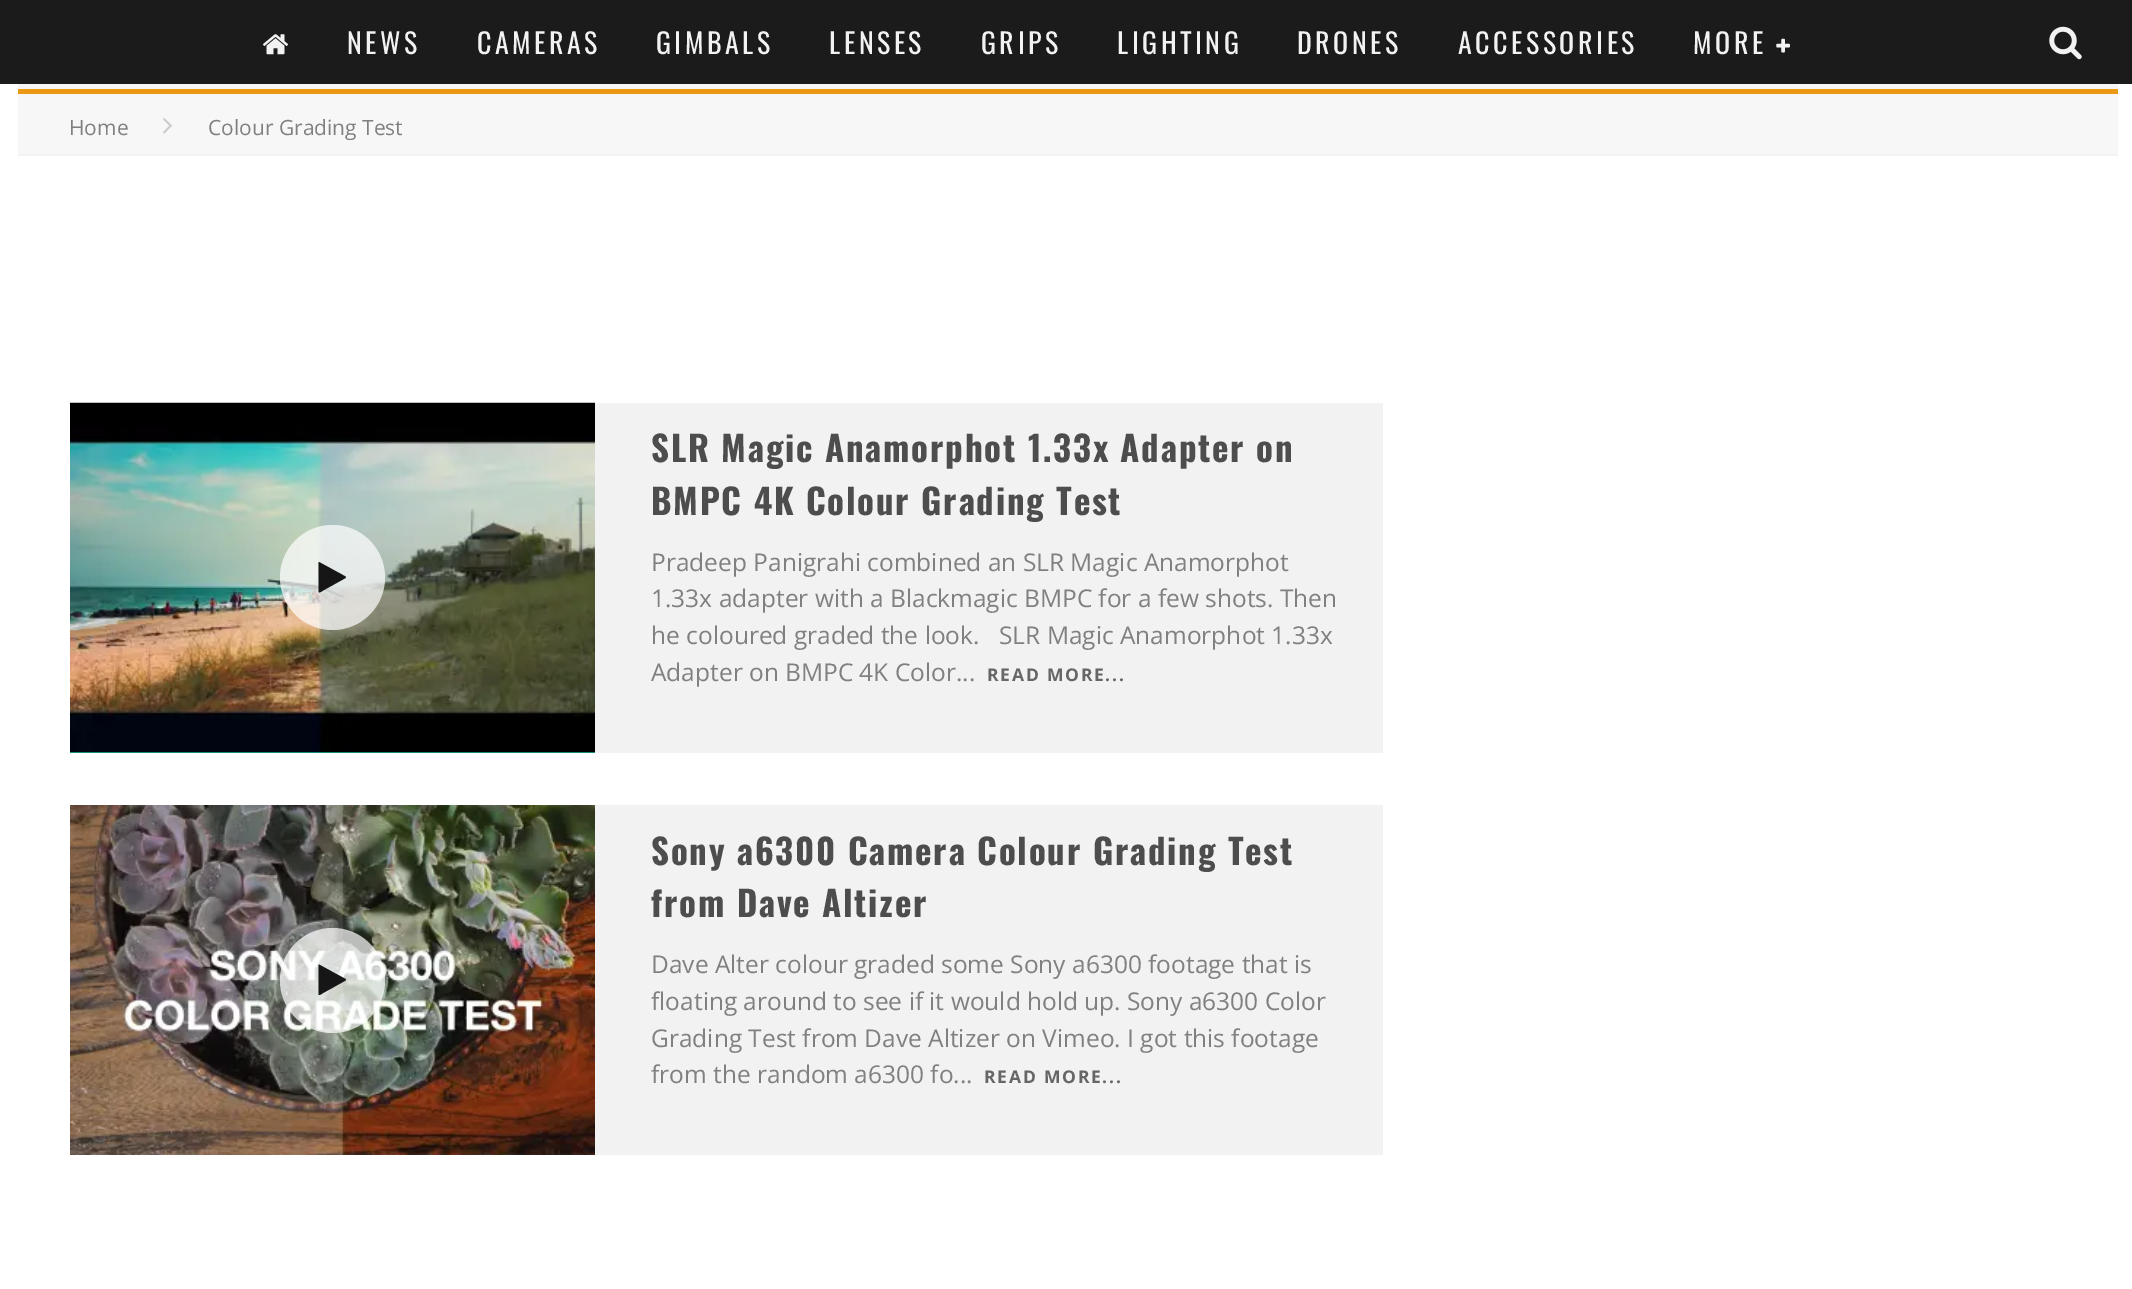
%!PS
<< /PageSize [2132 1289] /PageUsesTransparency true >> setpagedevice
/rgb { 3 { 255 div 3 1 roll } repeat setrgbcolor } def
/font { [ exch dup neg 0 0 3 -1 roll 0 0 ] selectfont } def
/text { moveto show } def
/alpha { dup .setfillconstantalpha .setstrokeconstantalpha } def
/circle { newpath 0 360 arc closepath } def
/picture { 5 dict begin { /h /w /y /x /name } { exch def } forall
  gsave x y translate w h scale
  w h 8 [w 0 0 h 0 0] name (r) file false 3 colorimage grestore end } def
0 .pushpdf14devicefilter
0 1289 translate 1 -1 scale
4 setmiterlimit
255 255 255 rgb
0 0 2132 1289 rectfill
27 27 27 rgb
0 0 2132 84 rectfill
(img_01.rgb) 262 34 27 21 picture
(img_02.rgb) 1776 38 14 15 picture
(img_03.rgb) 2049 26 33 34 picture
245 245 245 rgb
18 84 2100 11 rectfill
235 152 18 rgb
18 89 2100 5 rectfill
247 247 247 rgb
18 95 2100 59 rectfill
243 243 243 rgb
18 154 2100 2 rectfill
(img_04.rgb) 163 118 9 16 picture
242 242 242 rgb
595 403 788 350 rectfill
26 188 156 rgb
70 752 525 1 rectfill
(img_05.rgb) 70 402 525 351 picture
0.7 alpha
255 255 255 rgb
332.5 577.5 52.5 circle fill
1 alpha
22 22 22 rgb
345.5 578 moveto -21.5 12 rlineto -0.5 0 -4.5 3.5 -5.5 2 rcurveto 0 -29.5 rlineto 0.5 -0.5 rlineto 26.5 14.5 rlineto 0.5 0.5 rlineto closepath fill
242 242 242 rgb
595 805 788 350 rectfill
(img_06.rgb) 70 805 525 350 picture
0.7 alpha
255 255 255 rgb
332.5 980.5 52.5 circle fill
1 alpha
22 22 22 rgb
345.5 980.5 moveto -21.5 12 rlineto -0.5 0 -4.5 3.5 -5.5 2 rcurveto 0 -29.5 rlineto 0.5 -0.5 rlineto 26.5 14.5 rlineto 0.5 0.5 rlineto closepath fill
/Oswald-Regular 28 font
242 242 242 rgb
347 54 moveto 3.5 0 (NEWS) ashow
477 54 moveto 3.5 0 (CAMERAS) ashow
656 54 moveto 3.5 0 (GIMBALS) ashow
829 54 moveto 3.5 0 (LENSES) ashow
981 54 moveto 3.5 0 (GRIPS) ashow
1117 54 moveto 3.5 0 (LIGHTING) ashow
1297 54 moveto 3.5 0 (DRONES) ashow
1458 54 moveto 3.5 0 (ACCESSORIES) ashow
1693 54 moveto 3.5 0 (MORE) ashow
/OpenSans-Regular 21 font
128 128 128 rgb
(Home) 69 135 text
(Colour Grading Test) 208 135 text
/Oswald-Bold 35 font
77 77 77 rgb
651 462 moveto 1.75 0 (SLR Magic Anamorphot 1.33x Adapter on) ashow
651 515 moveto 1.75 0 (BMPC 4K Colour Grading Test) ashow
/OpenSans-Regular 24.5 font
128 128 128 rgb
(Pradeep Panigrahi combined an SLR Magic Anamorphot) 651 571 text
(1.33x adapter with a Blackmagic BMPC for a few shots. Then) 651 607 text
(he coloured graded the look.) 651 644 text
(SLR Magic Anamorphot 1.33x) 999 644 text
(Adapter on BMPC 4K Color...) 651 681 text
/OpenSans-Bold 17.5 font
102 102 102 rgb
987 681 moveto 1.75 0 (READ MORE...) ashow
/Oswald-Bold 35 font
77 77 77 rgb
651 865 moveto 1.75 0 (Sony a6300 Camera Colour Grading Test) ashow
651 917 moveto 1.75 0 (from Dave Altizer) ashow
/OpenSans-Regular 24.5 font
128 128 128 rgb
(Dave Alter colour graded some Sony a6300 footage that is) 651 973 text
(floating around to see if it would hold up. Sony a6300 Color) 651 1010 text
(Grading Test from Dave Altizer on Vimeo. I got this footage) 651 1047 text
(from the random a6300 fo...) 651 1083 text
/OpenSans-Bold 17.5 font
102 102 102 rgb
984 1083 moveto 1.75 0 (READ MORE...) ashow
.poppdf14devicefilter showpage
